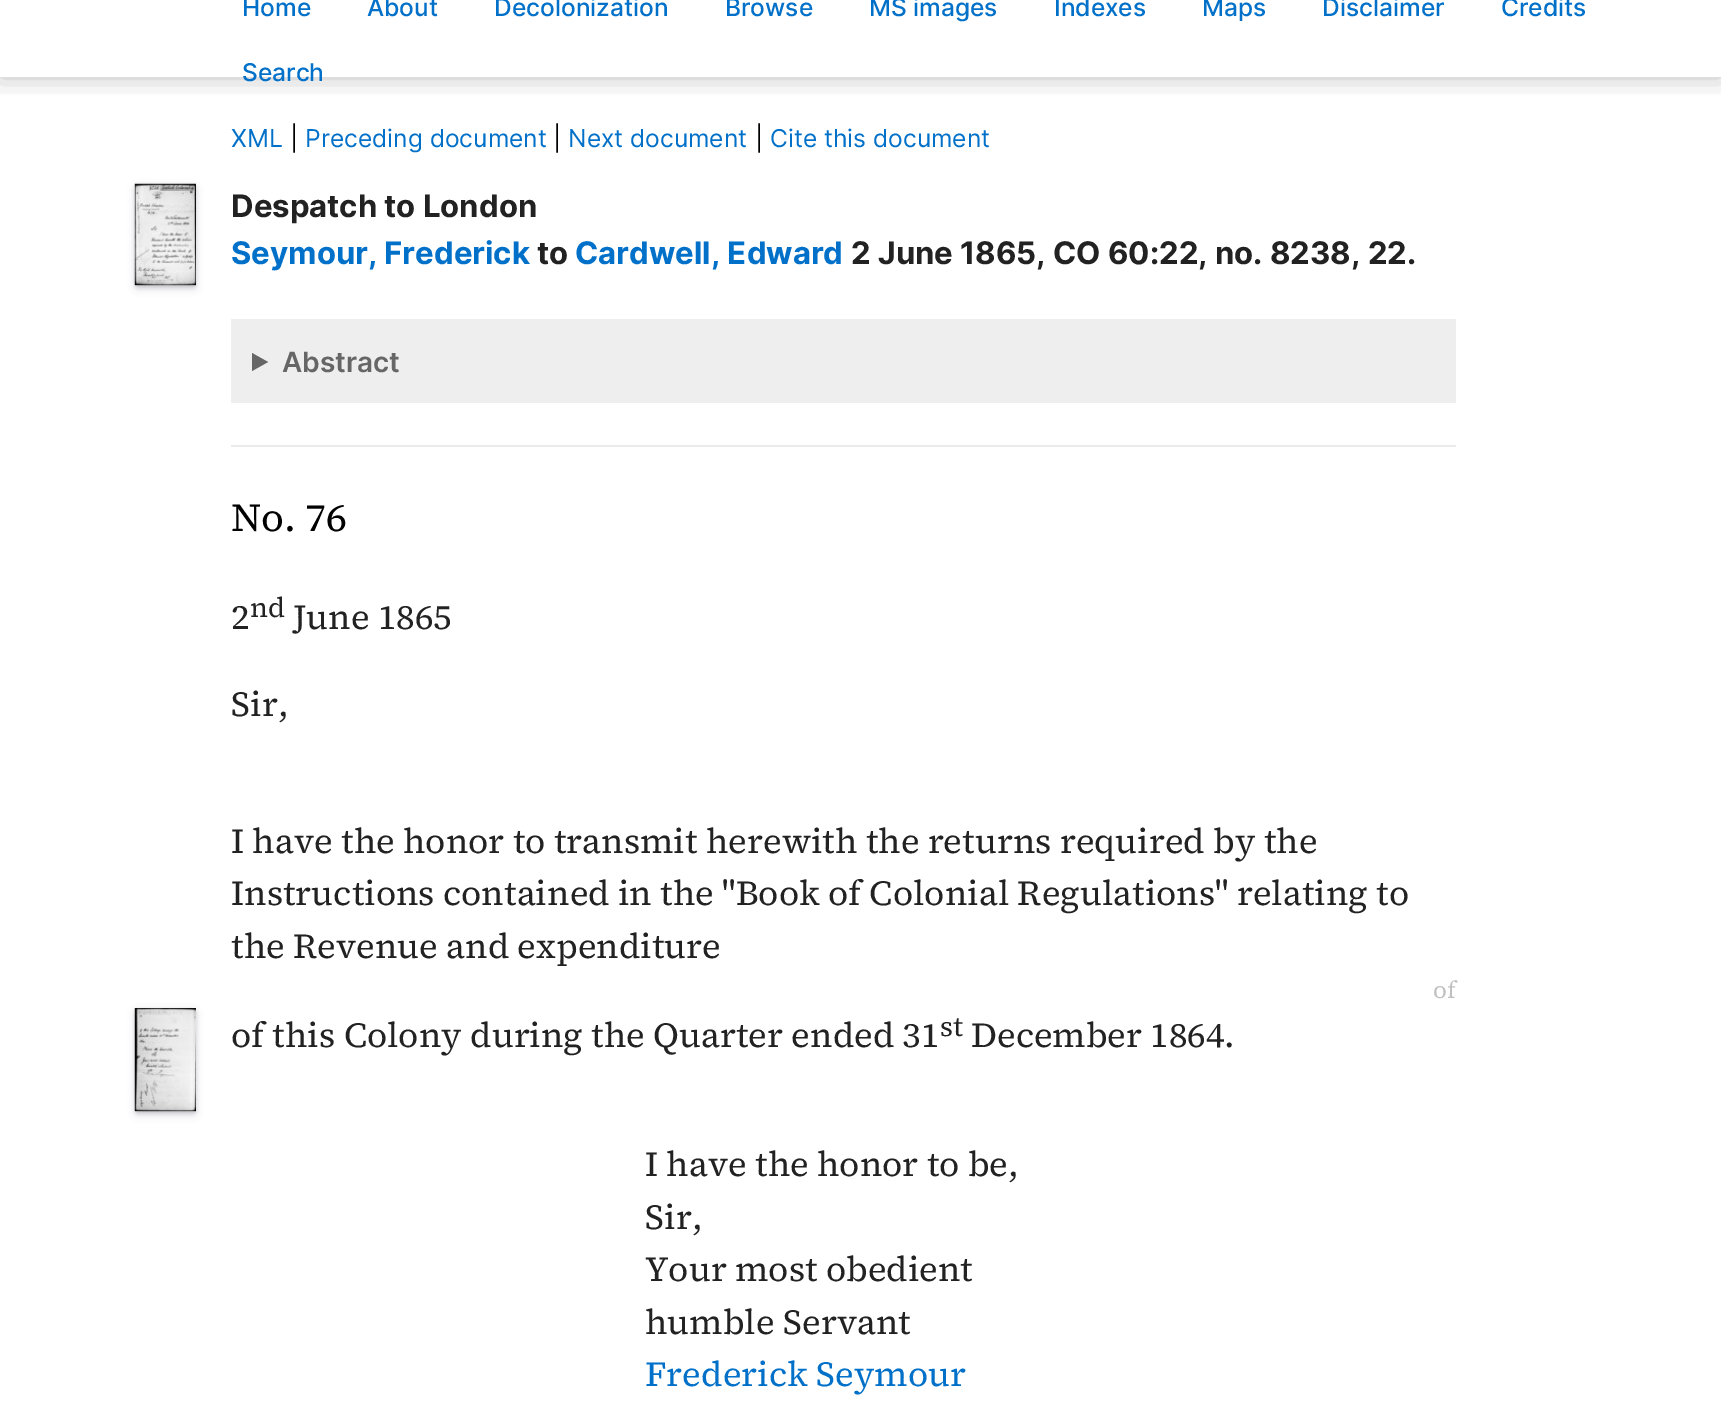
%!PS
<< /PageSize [1721 1404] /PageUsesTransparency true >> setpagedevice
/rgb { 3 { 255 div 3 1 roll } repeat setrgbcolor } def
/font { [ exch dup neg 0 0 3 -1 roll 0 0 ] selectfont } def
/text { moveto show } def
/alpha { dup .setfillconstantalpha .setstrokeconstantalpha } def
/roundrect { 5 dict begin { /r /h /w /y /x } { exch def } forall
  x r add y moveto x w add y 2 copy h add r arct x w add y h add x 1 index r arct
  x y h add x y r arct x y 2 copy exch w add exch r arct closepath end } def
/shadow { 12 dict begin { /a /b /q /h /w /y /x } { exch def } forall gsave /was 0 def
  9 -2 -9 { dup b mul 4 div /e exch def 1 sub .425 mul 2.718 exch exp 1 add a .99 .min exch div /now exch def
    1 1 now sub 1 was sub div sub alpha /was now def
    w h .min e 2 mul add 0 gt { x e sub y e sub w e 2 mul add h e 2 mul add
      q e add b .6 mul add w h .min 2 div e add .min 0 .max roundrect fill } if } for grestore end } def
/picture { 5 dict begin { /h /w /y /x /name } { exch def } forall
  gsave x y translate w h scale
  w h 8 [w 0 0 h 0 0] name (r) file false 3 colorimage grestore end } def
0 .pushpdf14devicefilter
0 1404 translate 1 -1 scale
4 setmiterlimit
255 255 255 rgb
0 0 1721 1404 rectfill
gsave
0 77 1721 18 rectclip
0 0 0 rgb
0 0 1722 77 0 13 0.25 shadow
grestore
235 235 235 rgb
231 445 1225 2 rectfill
0 0 0 rgb
137 187 57 98 0 2.5 0.3 shadow
50 50 93 rgb
137 189 57 98 0 4.5 0.25 shadow
(img_01.rgb) 134 183 62 103 picture
238 238 238 rgb
231 319 1225 84 rectfill
102 102 102 rgb
252 353 moveto 16 9 rlineto -16 9 rlineto closepath fill
0 0 0 rgb
137 1012 57 99 0 2.5 0.3 shadow
50 50 93 rgb
137 1013 57 100 0 4.5 0.25 shadow
(img_02.rgb) 134 1008 62 104 picture
/Inter-Medium 24.5 font
0 112 201 rgb
(Home) 242 16 text
(About) 367 16 text
(Decolonization) 494 16 text
(Browse) 725 16 text
(MS images) 869 16 text
(Indexes) 1054 16 text
(Maps) 1202 16 text
(Disclaimer) 1322 16 text
(Credits) 1501 16 text
(Search) 242 81 text
/Inter-Regular 24.6 font
(XML) 231 147 text
0 0 0 rgb
(|) 290 147 text
0 112 201 rgb
(Preceding document) 305 147 text
0 0 0 rgb
(|) 553 147 text
0 112 201 rgb
(Next document) 568 147 text
0 0 0 rgb
(|) 755 147 text
0 112 201 rgb
(Cite this document) 770 147 text
/Inter-Bold 31.1 font
34 34 34 rgb
(Despatch to London) 231 217 text
0 112 201 rgb
(Seymour, Frederick) 231 264 text
34 34 34 rgb
(to) 537 264 text
0 112 201 rgb
(Cardwell, Edward) 575 264 text
34 34 34 rgb
(2 June 1865, CO 60:22, no. 8238, 22.) 851 264 text
/Inter-SemiBold 28 font
102 102 102 rgb
(Abstract) 282 372 text
/SourceSerif4-Regular 39.5 font
0 0 0 rgb
(No. 76) 231 531 text
/SourceSerif4-Regular 35 font
34 34 34 rgb
(2) 231 629 text
/SourceSerif4-Regular 28 font
(nd) 250 617 text
/SourceSerif4-Regular 35 font
(June 1865) 293 629 text
(Sir,) 231 716 text
(I have the honor to transmit herewith the returns required by the) 231 853 text
(Instructions contained in the "Book of Colonial Regulations" relating to) 231 905 text
(the Revenue and expenditure) 231 958 text
/SourceSerif4-Regular 24 font
192 192 192 rgb
(of) 1433 998 text
/SourceSerif4-Regular 35 font
34 34 34 rgb
(of this Colony during the Quarter ended 31) 231 1047 text
/SourceSerif4-Regular 28 font
(st) 940 1036 text
/SourceSerif4-Regular 35 font
(December 1864.) 971 1047 text
(I have the honor to be,) 645 1176 text
(Sir,) 645 1229 text
(Your most obedient) 645 1281 text
(humble Servant) 645 1334 text
0 112 201 rgb
(Frederick Seymour) 645 1386 text
.poppdf14devicefilter showpage
